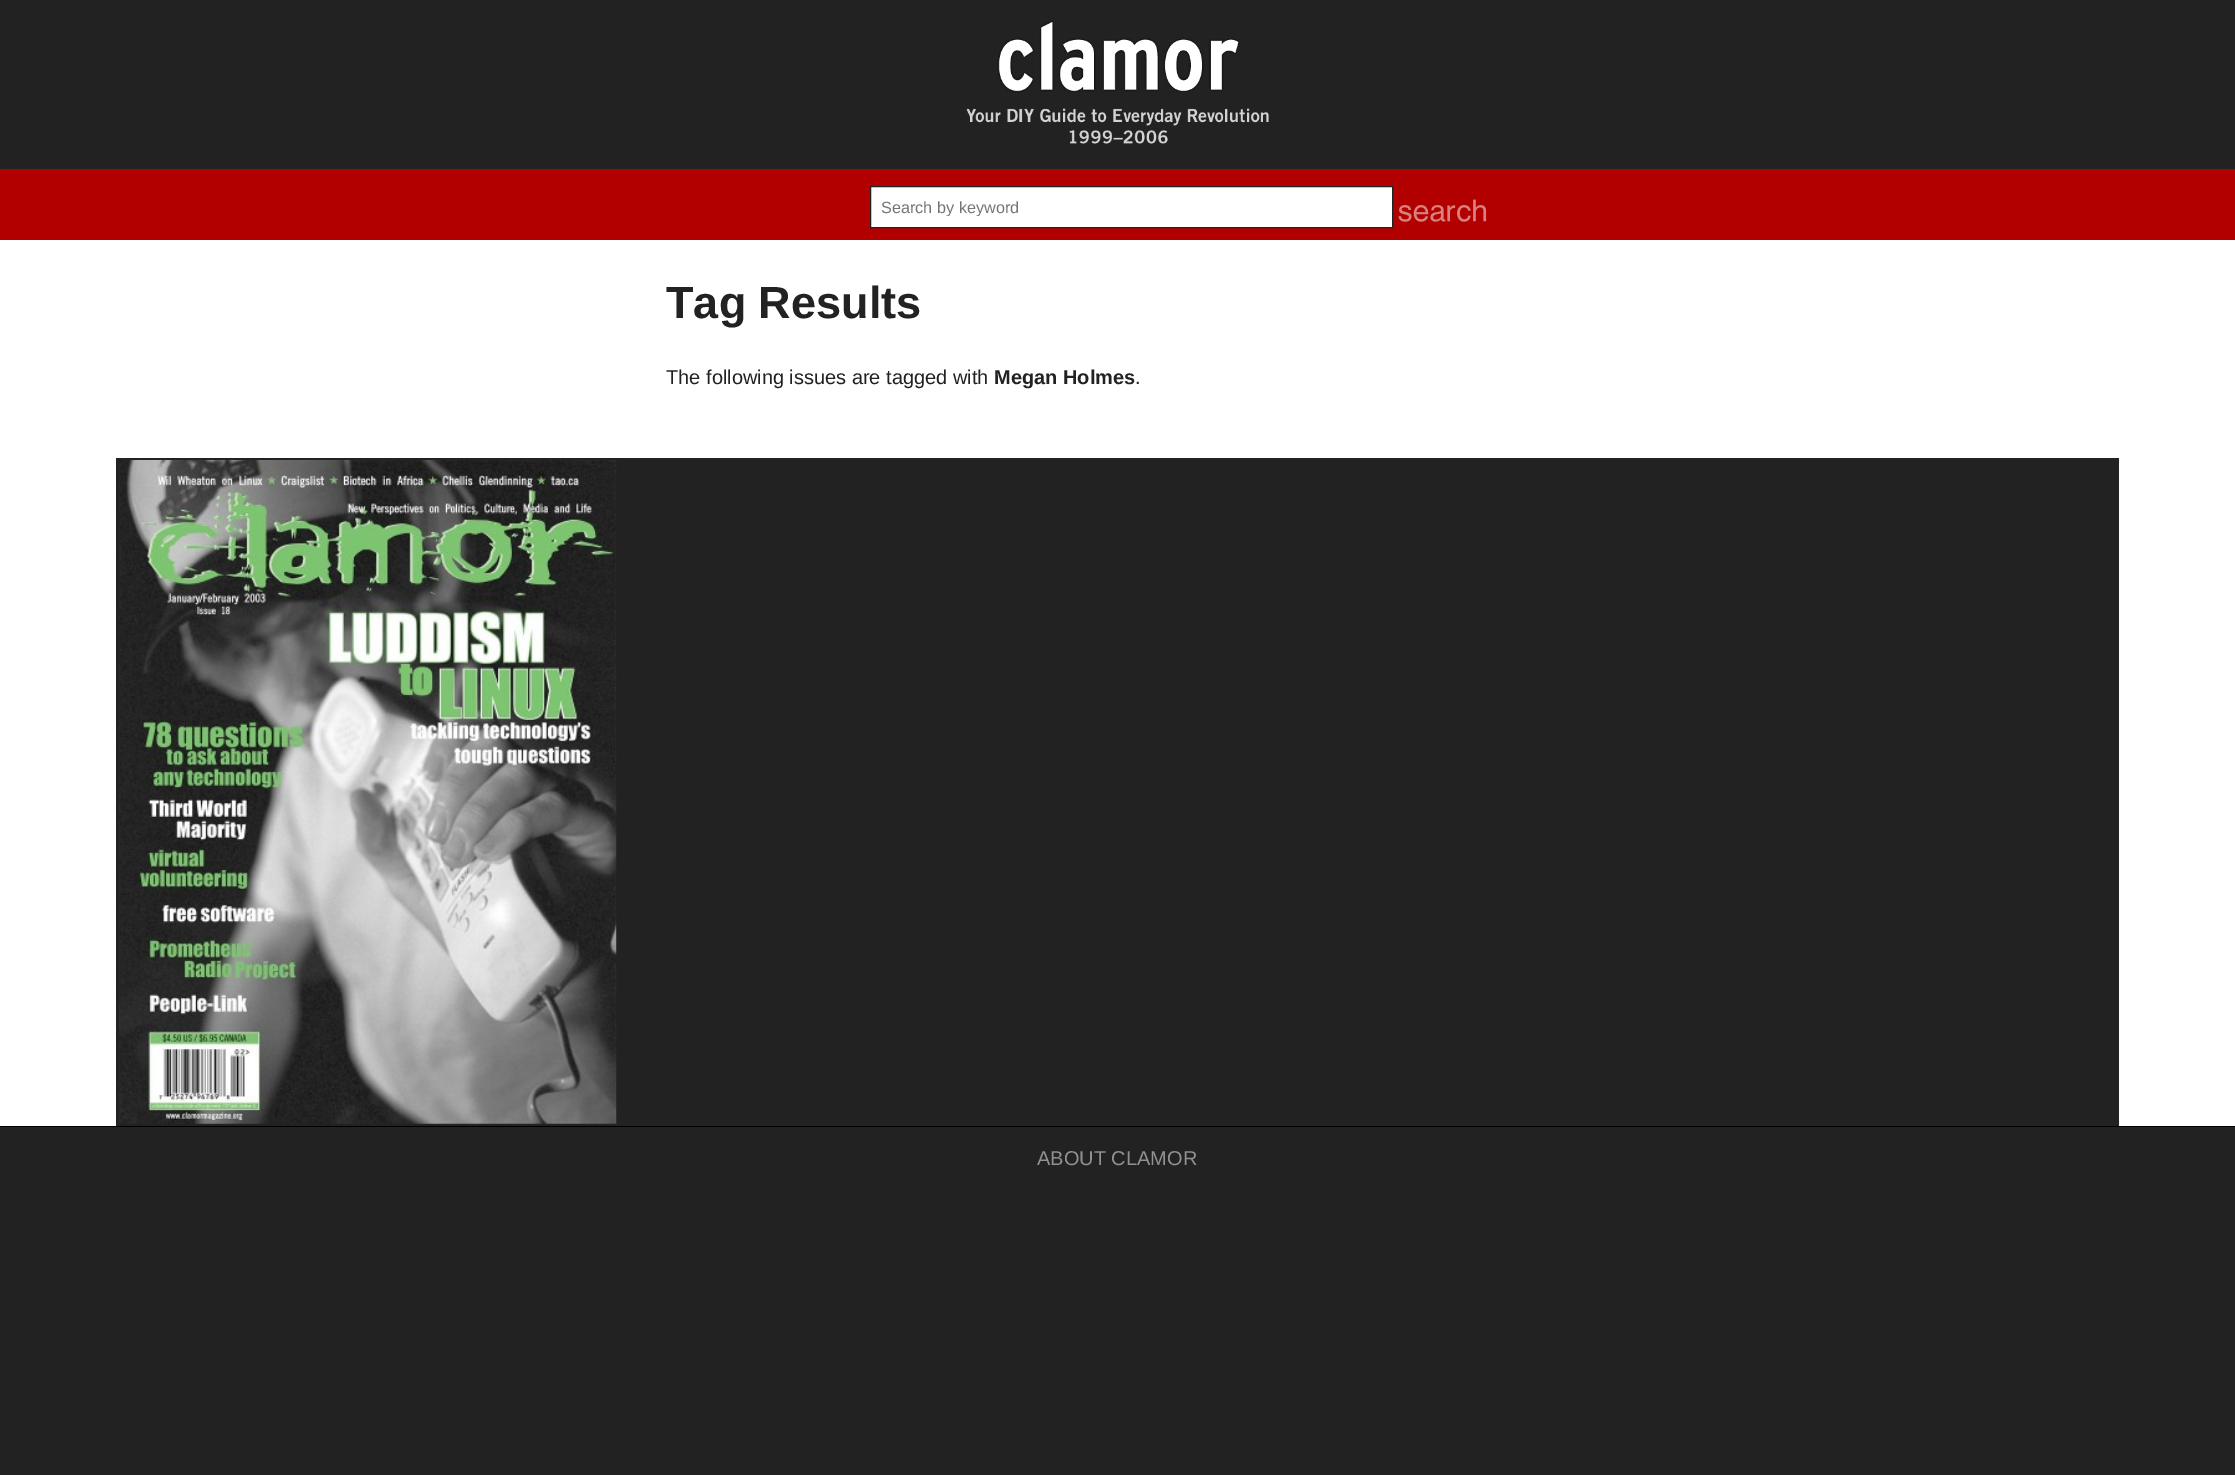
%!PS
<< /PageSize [2235 1475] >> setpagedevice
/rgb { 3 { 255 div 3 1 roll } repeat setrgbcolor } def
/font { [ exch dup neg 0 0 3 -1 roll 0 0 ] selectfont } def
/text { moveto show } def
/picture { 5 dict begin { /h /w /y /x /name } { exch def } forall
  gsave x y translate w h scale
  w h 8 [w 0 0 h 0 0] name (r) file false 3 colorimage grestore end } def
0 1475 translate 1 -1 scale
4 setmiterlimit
34 34 34 rgb
0 0 2235 1475 rectfill
(img_01.rgb) 966 21 303 123 picture
178 0 0 rgb
0 169 2235 71 rectfill
255 255 255 rgb
870.5 186.5 moveto 522 0 rlineto 0 41 rlineto -522 0 rlineto closepath gsave fill grestore
34 34 34 rgb
stroke
(img_02.rgb) 1398 199 89 23 picture
255 255 255 rgb
0 240 2235 886 rectfill
34 34 34 rgb
116 458 2003 668 rectfill
(img_03.rgb) 119 460 498 664 picture
0 0 0 rgb
0 1126 2235 1 rectfill
gsave
881 198 500 18 rectclip
/LiberationSans-Regular 16.25 font
117 117 117 rgb
(Search by keyword) 881 213 text
grestore
/LiberationSans-Bold 45 font
34 34 34 rgb
(Tag Results) 666 318 text
/LiberationSans-Regular 20 font
(The following issues are tagged with) 666 384 text
/LiberationSans-Bold 20 font
(Megan Holmes) 994 384 text
/LiberationSans-Regular 20 font
(.) 1135 384 text
145 145 145 rgb
(ABOUT CLAMOR) 1037 1165 text
showpage
